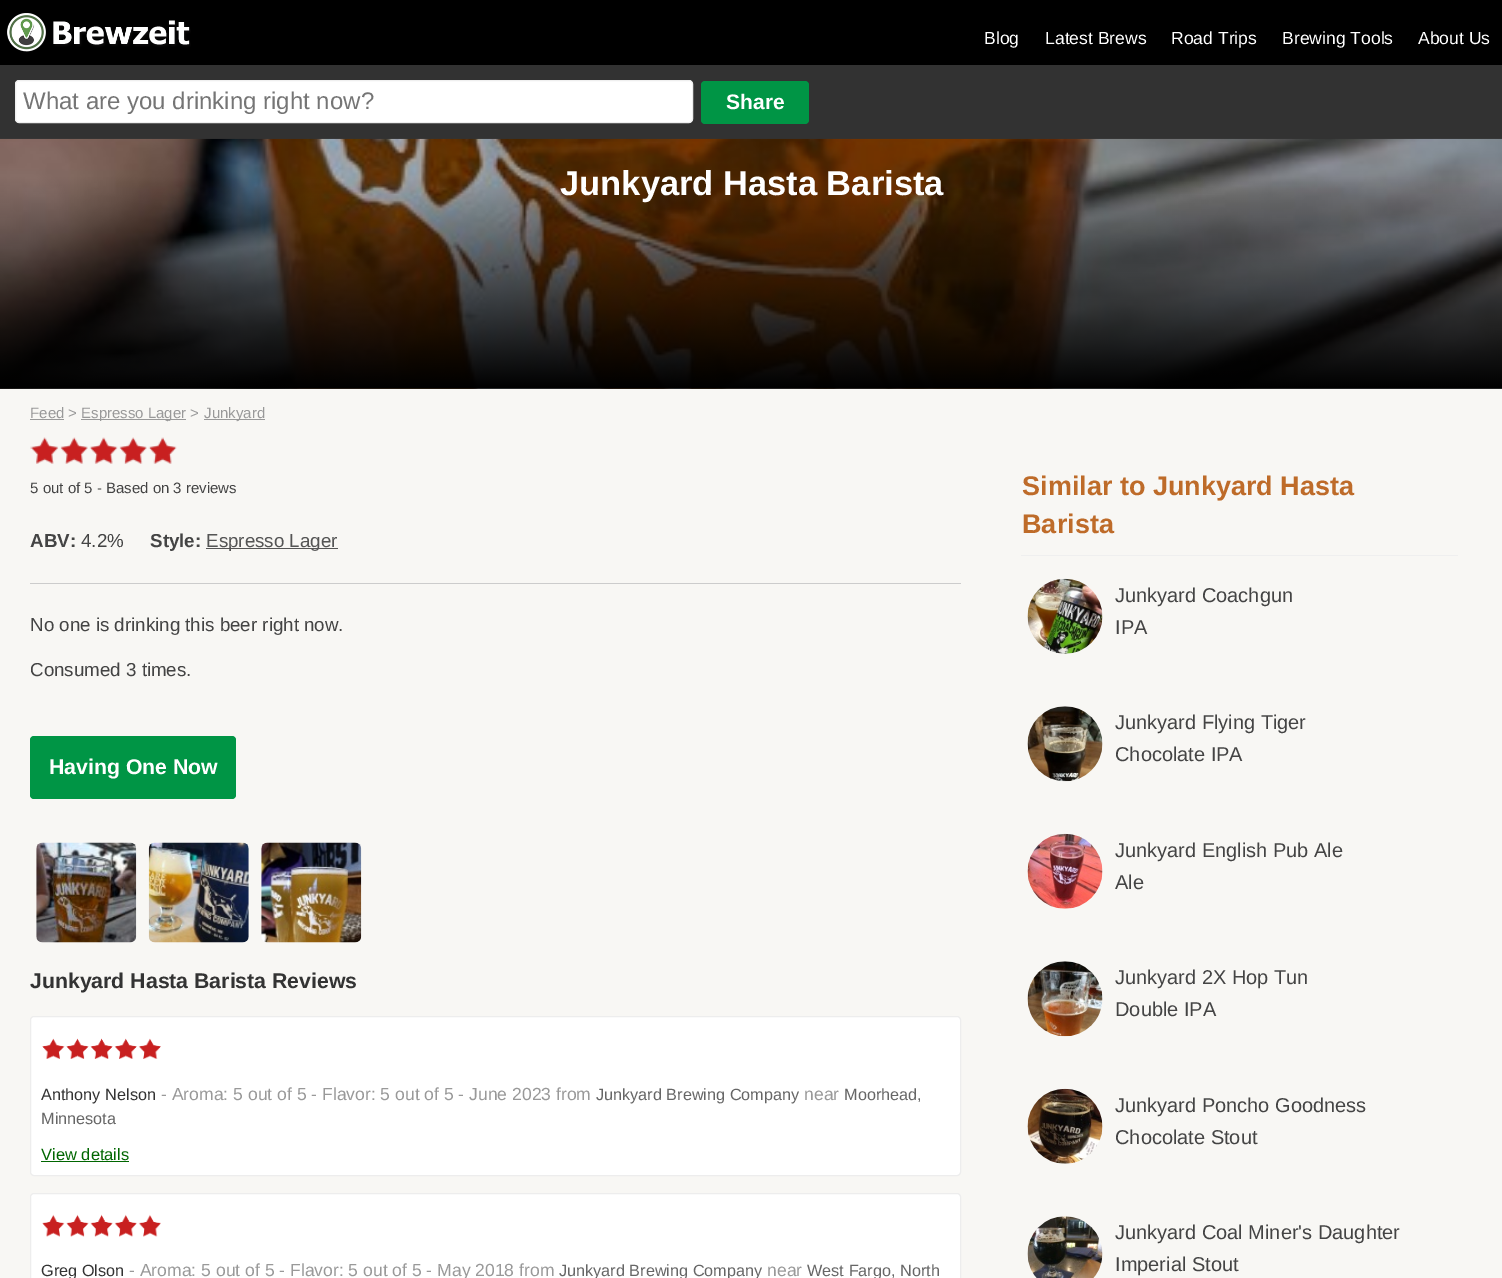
%!PS
<< /PageSize [1502 1278] >> setpagedevice
/rgb { 3 { 255 div 3 1 roll } repeat setrgbcolor } def
/font { [ exch dup neg 0 0 3 -1 roll 0 0 ] selectfont } def
/text { moveto show } def
/roundrect { 5 dict begin { /r /h /w /y /x } { exch def } forall
  x r add y moveto x w add y 2 copy h add r arct x w add y h add x 1 index r arct
  x y h add x y r arct x y 2 copy exch w add exch r arct closepath end } def
/picture { 5 dict begin { /h /w /y /x /name } { exch def } forall
  gsave x y translate w h scale
  w h 8 [w 0 0 h 0 0] name (r) file false 3 colorimage grestore end } def
0 1278 translate 1 -1 scale
4 setmiterlimit
0 0 0 rgb
0 0 1502 1278 rectfill
(img_01.rgb) 7 13 184 39 picture
50 50 50 rgb
0 65 1502 74 rectfill
255 255 255 rgb
15.5 80.5 677 42 3.5 roundrect gsave fill grestore
239 239 239 rgb
stroke
0 149 69 rgb
701 81 108 43 4 roundrect fill
248 247 244 rgb
0 388 1502 890 rectfill
(img_02.rgb) 0 138 1502 251 picture
153 153 153 rgb
30 419 34 1 rectfill
81 419 105 1 rectfill
204 419 61 1 rectfill
(img_03.rgb) 30 437 146 27 picture
(img_04.rgb) 30 437 147 27 picture
85 85 85 rgb
206 548 132 1 rectfill
204 204 204 rgb
30 583 931 1 rectfill
0 149 69 rgb
30 736 206 63 4 roundrect fill
(img_05.rgb) 36 842 101 101 picture
(img_06.rgb) 148 842 101 101 picture
(img_07.rgb) 261 842 101 101 picture
255 255 255 rgb
30.5 1016.5 930 159 3.5 roundrect gsave fill grestore
237 237 237 rgb
stroke
(img_08.rgb) 42 1038 119 21 picture
0 102 0 rgb
41 1161 88 1 rectfill
255 255 255 rgb
30.5 1193.5 930 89 3.5 roundrect gsave fill grestore
237 237 237 rgb
stroke
(img_09.rgb) 42 1214 119 23 picture
239 239 239 rgb
1021 555 437 1 rectfill
(img_10.rgb) 1027 578 76 76 picture
(img_11.rgb) 1027 706 76 76 picture
(img_12.rgb) 1027 833 76 76 picture
(img_13.rgb) 1027 961 76 76 picture
(img_14.rgb) 1027 1088 76 76 picture
(img_15.rgb) 1027 1216 76 62 picture
/LiberationSans-Regular 17.55 font
255 255 255 rgb
(Blog) 984 44 text
(Latest Brews) 1045 44 text
(Road Trips) 1171 44 text
(Brewing Tools) 1282 44 text
(About Us) 1418 44 text
/LiberationSans-Regular 24 font
117 117 117 rgb
(What are you drinking right now?) 23 109 text
/LiberationSans-Bold 21 font
255 255 255 rgb
(Share) 726 109 text
/LiberationSans-Bold 34.5 font
(Junkyard Hasta Barista) 560 195 text
/LiberationSans-Regular 15 font
153 153 153 rgb
(Feed >) 30 418 text
(Espresso Lager >) 81 418 text
(Junkyard) 204 418 text
68 68 68 rgb
(5 out of 5 - Based on 3 reviews) 30 493 text
/LiberationSans-Bold 18.75 font
(ABV:) 30 547 text
/LiberationSans-Regular 18.75 font
(4.2%) 81 547 text
/LiberationSans-Bold 18.75 font
(Style:) 150 547 text
/LiberationSans-Regular 18.75 font
85 85 85 rgb
(Espresso Lager) 206 547 text
68 68 68 rgb
(No one is drinking this beer right now.) 30 631 text
(Consumed 3 times.) 30 676 text
/LiberationSans-Bold 21.25 font
255 255 255 rgb
(Having One Now) 49 774 text
51 51 51 rgb
(Junkyard Hasta Barista Reviews) 30 988 text
/LiberationSans-Regular 16.25 font
(Anthony Nelson) 41 1100 text
/LiberationSans-Regular 17.55 font
153 153 153 rgb
(- Aroma: 5 out of 5 - Flavor: 5 out of 5 - June 2023 from) 161 1100 text
/LiberationSans-Regular 16.25 font
102 102 102 rgb
(Junkyard Brewing Company) 596 1100 text
/LiberationSans-Regular 17.55 font
153 153 153 rgb
(near) 804 1100 text
/LiberationSans-Regular 16.25 font
102 102 102 rgb
(Moorhead,) 844 1100 text
(Minnesota) 41 1124 text
/LiberationSans-Regular 16.5 font
0 102 0 rgb
(View details) 41 1160 text
/LiberationSans-Regular 16.25 font
51 51 51 rgb
(Greg Olson) 41 1276 text
/LiberationSans-Regular 17.55 font
153 153 153 rgb
(- Aroma: 5 out of 5 - Flavor: 5 out of 5 - May 2018 from) 129 1276 text
/LiberationSans-Regular 16.25 font
102 102 102 rgb
(Junkyard Brewing Company) 559 1276 text
/LiberationSans-Regular 17.55 font
153 153 153 rgb
(near) 767 1276 text
/LiberationSans-Regular 16.25 font
102 102 102 rgb
(West Fargo, North) 807 1276 text
/LiberationSans-Bold 27 font
190 107 41 rgb
(Similar to Junkyard Hasta) 1022 495 text
(Barista) 1022 533 text
/LiberationSans-Regular 20 font
68 68 68 rgb
(Junkyard Coachgun) 1115 602 text
(IPA) 1115 634 text
(Junkyard Flying Tiger) 1115 729 text
(Chocolate IPA) 1115 761 text
(Junkyard English Pub Ale) 1115 857 text
(Ale) 1115 889 text
(Junkyard 2X Hop Tun) 1115 984 text
(Double IPA) 1115 1016 text
(Junkyard Poncho Goodness) 1115 1112 text
(Chocolate Stout) 1115 1144 text
(Junkyard Coal Miner's Daughter) 1115 1239 text
(Imperial Stout) 1115 1271 text
showpage
